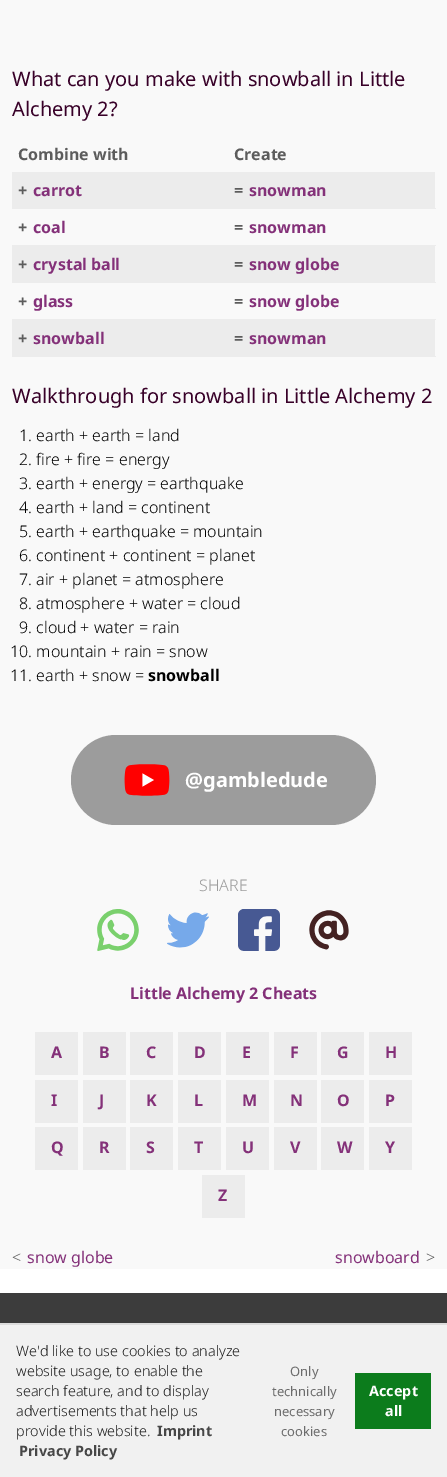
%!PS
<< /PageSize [447 1477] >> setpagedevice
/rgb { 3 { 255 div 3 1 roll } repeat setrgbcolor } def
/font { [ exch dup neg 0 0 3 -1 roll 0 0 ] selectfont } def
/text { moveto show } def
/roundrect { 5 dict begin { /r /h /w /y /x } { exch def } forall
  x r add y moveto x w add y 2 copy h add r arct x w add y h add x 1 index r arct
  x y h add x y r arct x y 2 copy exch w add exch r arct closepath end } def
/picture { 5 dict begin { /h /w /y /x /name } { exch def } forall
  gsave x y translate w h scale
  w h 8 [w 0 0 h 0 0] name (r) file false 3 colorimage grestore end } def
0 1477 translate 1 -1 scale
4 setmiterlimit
255 255 255 rgb
0 0 447 1477 rectfill
249 249 249 rgb
0 0 447 1269 rectfill
236 236 236 rgb
12 172 423 36 rectfill
12 208 424 1 rectfill
12 245 424 1 rectfill
12 246 423 36 rectfill
12 282 424 1 rectfill
12 319 424 1 rectfill
12 320 423 36 rectfill
12 356 424 1 rectfill
156 156 156 rgb
71 735 305 90 45 roundrect fill
(img_01.rgb) 124 764 46 32 picture
(img_02.rgb) 97 909 42 42 picture
(img_03.rgb) 167 912 42 36 picture
(img_04.rgb) 238 909 42 42 picture
(img_05.rgb) 309 910 40 40 picture
236 236 236 rgb
35 1032 43 43 rectfill
83 1032 43 43 rectfill
130 1032 43 43 rectfill
178 1032 43 43 rectfill
226 1032 43 43 rectfill
274 1032 43 43 rectfill
321 1032 43 43 rectfill
369 1032 43 43 rectfill
35 1080 43 43 rectfill
83 1080 43 43 rectfill
130 1080 43 43 rectfill
178 1080 43 43 rectfill
226 1080 43 43 rectfill
274 1080 43 43 rectfill
321 1080 43 43 rectfill
369 1080 43 43 rectfill
35 1127 43 43 rectfill
83 1127 43 43 rectfill
130 1127 43 43 rectfill
178 1127 43 43 rectfill
226 1127 43 43 rectfill
274 1127 43 43 rectfill
321 1127 43 43 rectfill
369 1127 43 43 rectfill
202 1175 43 43 rectfill
60 60 60 rgb
0 1293 447 30 rectfill
241 241 241 rgb
0 1325 447 152 rectfill
220 220 220 rgb
0 1323 447 2 rectfill
12 124 28 rgb
355 1373 76 56 rectfill
/NotoSans-Regular 20 font
56 0 40 rgb
(What can you make with snowball in Little) 12 86 text
(Alchemy 2?) 12 116 text
/NotoSans-Bold 16 font
92 92 92 rgb
(Combine with) 18 160 text
(Create) 234 160 text
(+) 18 196 text
132 49 121 rgb
(carrot) 33 196 text
92 92 92 rgb
(=) 234 196 text
132 49 121 rgb
(snowman) 249 196 text
92 92 92 rgb
(+) 18 233 text
132 49 121 rgb
(coal) 33 233 text
92 92 92 rgb
(=) 234 233 text
132 49 121 rgb
(snowman) 249 233 text
92 92 92 rgb
(+) 18 270 text
132 49 121 rgb
(crystal ball) 33 270 text
92 92 92 rgb
(=) 234 270 text
132 49 121 rgb
(snow globe) 249 270 text
92 92 92 rgb
(+) 18 307 text
132 49 121 rgb
(glass) 33 307 text
92 92 92 rgb
(=) 234 307 text
132 49 121 rgb
(snow globe) 249 307 text
92 92 92 rgb
(+) 18 344 text
132 49 121 rgb
(snowball) 33 344 text
92 92 92 rgb
(=) 234 344 text
132 49 121 rgb
(snowman) 249 344 text
/NotoSans-Regular 20 font
56 0 40 rgb
(Walkthrough for snowball in Little Alchemy 2) 12 403 text
/NotoSans-Light 16 font
0 0 0 rgb
(1. earth + earth = land) 19 441 text
(2. fire + fire = energy) 19 465 text
(3. earth + energy = earthquake) 19 489 text
(4. earth + land = continent) 19 513 text
(5. earth + earthquake = mountain) 19 537 text
(6. continent + continent = planet) 19 561 text
(7. air + planet = atmosphere) 19 585 text
(8. atmosphere + water = cloud) 19 609 text
(9. cloud + water = rain) 19 633 text
(10. mountain + rain = snow) 10 657 text
(11. earth + snow =) 10 681 text
/NotoSans-Bold 16 font
(snowball) 148 681 text
/NotoSans-Bold 20 font
255 255 255 rgb
(@gambledude) 185 787 text
/NotoSans-Light 16 font
156 156 156 rgb
(SHARE) 199 891 text
/NotoSans-Bold 16 font
132 49 121 rgb
(Little Alchemy 2 Cheats) 130 999 text
(A) 51 1058 text
(B) 99 1058 text
(C) 146 1058 text
(D) 194 1058 text
(E) 242 1058 text
(F) 290 1058 text
(G) 337 1058 text
(H) 385 1058 text
(I) 51 1106 text
(J) 99 1106 text
(K) 146 1106 text
(L) 194 1106 text
(M) 242 1106 text
(N) 290 1106 text
(O) 337 1106 text
(P) 385 1106 text
(Q) 51 1153 text
(R) 99 1153 text
(S) 146 1153 text
(T) 194 1153 text
(U) 242 1153 text
(V) 290 1153 text
(W) 337 1153 text
(Y) 385 1153 text
(Z) 218 1201 text
/NotoSans-Light 16 font
92 92 92 rgb
(<) 12 1263 text
/NotoSans-Regular 16 font
132 49 121 rgb
(snow globe) 27 1263 text
(snowboard) 335 1263 text
/NotoSans-Light 16 font
92 92 92 rgb
(>) 426 1263 text
/NotoSans-Light 14.4 font
28 28 28 rgb
(We'd like to use cookies to analyze) 16 1356 text
(website usage, to enable the) 16 1376 text
(search feature, and to display) 16 1396 text
(advertisements that help us) 16 1416 text
(provide this website.) 16 1436 text
/NotoSans-Bold 14.4 font
71 71 71 rgb
(Imprint) 157 1436 text
(Privacy Policy) 19 1456 text
/NotoSans-Regular 13 font
108 108 108 rgb
(Only) 290 1376 text
(technically) 272 1396 text
(necessary) 274 1416 text
(cookies) 281 1436 text
/NotoSans-Bold 14.4 font
255 255 255 rgb
(Accept) 369 1396 text
(all) 385 1416 text
showpage
